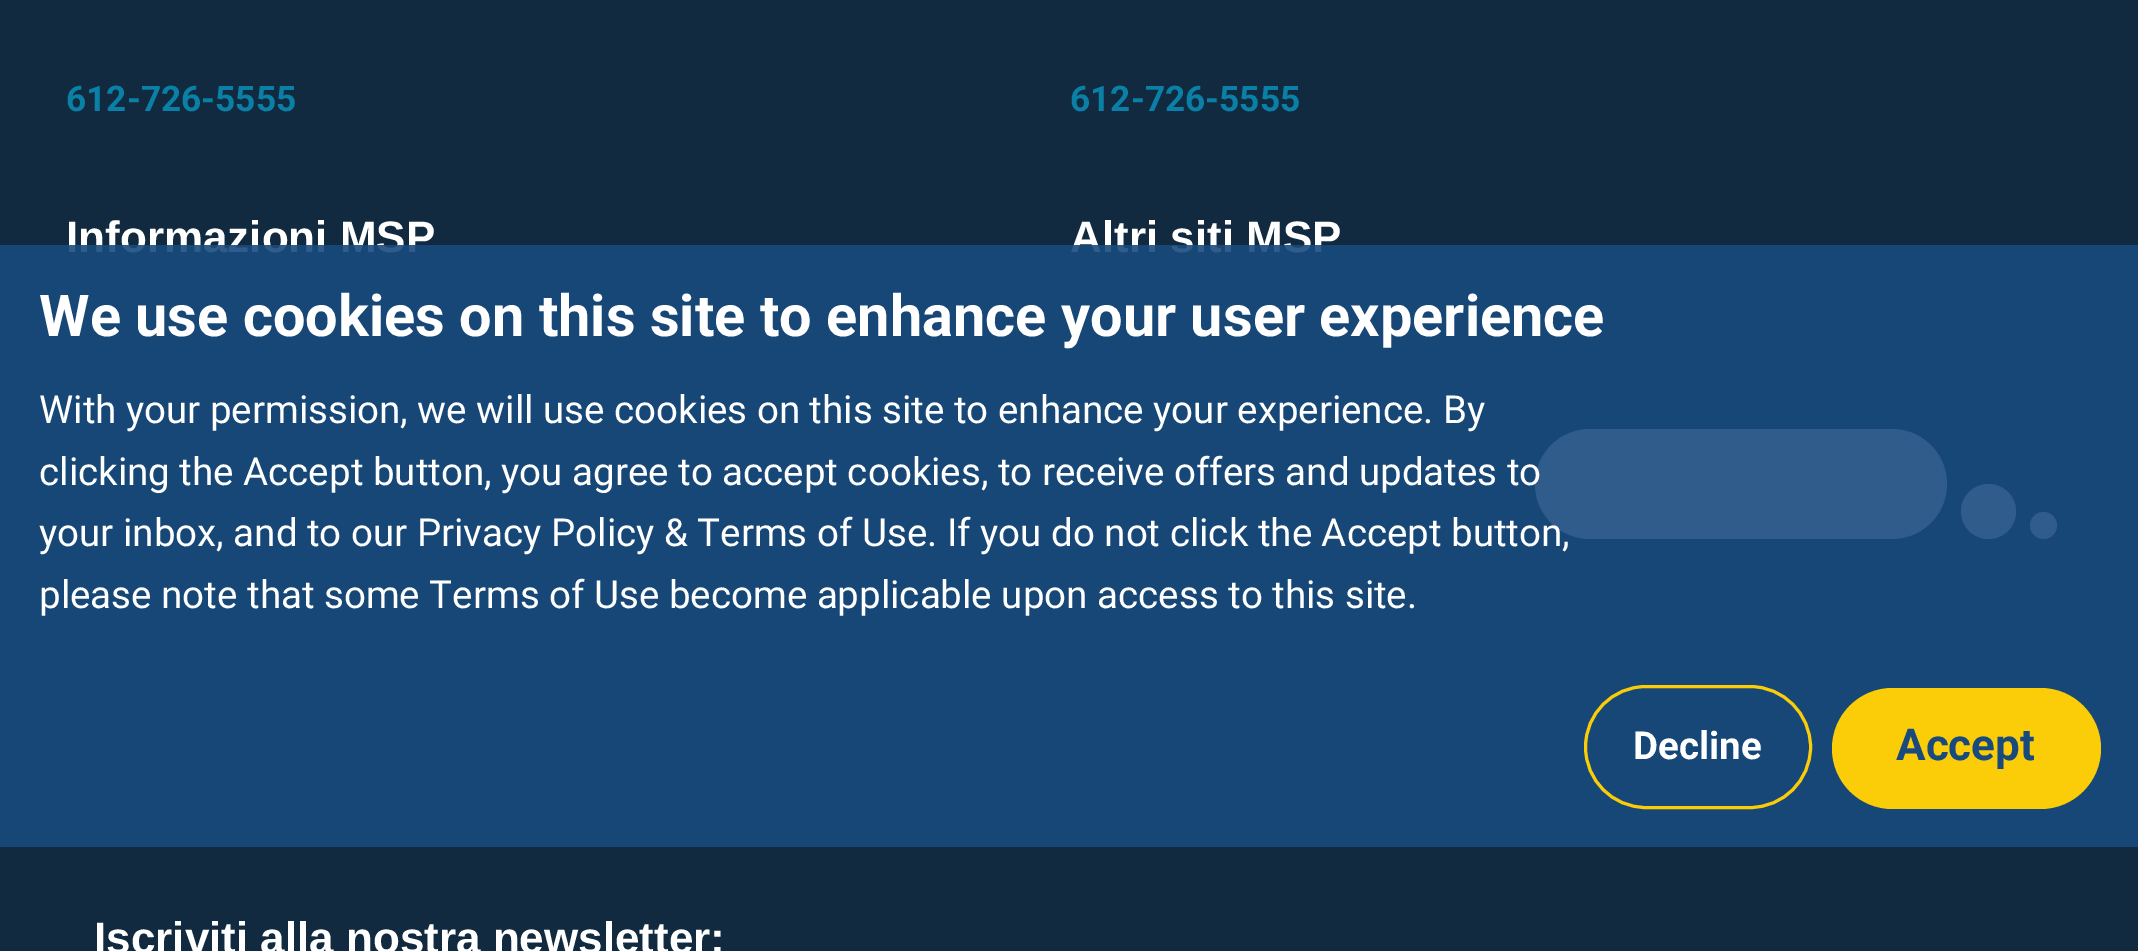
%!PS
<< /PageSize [2138 951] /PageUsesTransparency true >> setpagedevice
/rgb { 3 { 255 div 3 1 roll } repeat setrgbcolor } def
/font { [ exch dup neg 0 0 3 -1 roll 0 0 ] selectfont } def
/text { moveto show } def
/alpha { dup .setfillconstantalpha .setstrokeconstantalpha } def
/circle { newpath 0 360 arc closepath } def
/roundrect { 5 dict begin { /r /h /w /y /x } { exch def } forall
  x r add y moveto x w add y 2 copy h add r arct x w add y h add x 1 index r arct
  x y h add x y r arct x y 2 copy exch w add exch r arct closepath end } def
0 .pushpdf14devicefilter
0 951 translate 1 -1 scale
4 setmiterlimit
17 42 63 rgb
0 0 2138 951 rectfill
255 255 255 rgb
1535 429 412 110 55 roundrect fill
1988.5 511.5 27.5 circle fill
2043.5 525.5 13.5 circle fill
/Roboto-Bold 35.25 font
11 128 167 rgb
(612-726-5555) 66 111 text
(612-726-5555) 1070 111 text
/LiberationSans-Bold 44 font
255 255 255 rgb
(Informazioni MSP) 66 252 text
(Altri siti MSP) 1070 252 text
(Iscriviti alla nostra newsletter:) 94 953 text
0.9 alpha
24 74 125 rgb
0 245 2138 602 rectfill
/Roboto-Bold 57.75 font
1 alpha
255 255 255 rgb
(We use cookies on this site to enhance your user experience) 39 336 text
/Roboto-Regular 38.5 font
(With your permission, we will use cookies on this site to enhance your experience. By) 39 423 text
(clicking the Accept button, you agree to accept cookies, to receive offers and updates to) 39 485 text
(your inbox, and to our Privacy Policy & Terms of Use. If you do not click the Accept button,) 39 546 text
(please note that some Terms of Use become applicable upon access to this site.) 39 608 text
251 205 9 rgb
3 setlinewidth
1585.5 686.5 225 121 60.5 roundrect stroke
/Roboto-Bold 38.5 font
255 255 255 rgb
(Decline) 1633 759 text
251 205 9 rgb
1832 688 269 121 60.5 roundrect fill
/Roboto-Bold 44 font
24 74 125 rgb
(Accept) 1896 760 text
.poppdf14devicefilter showpage
